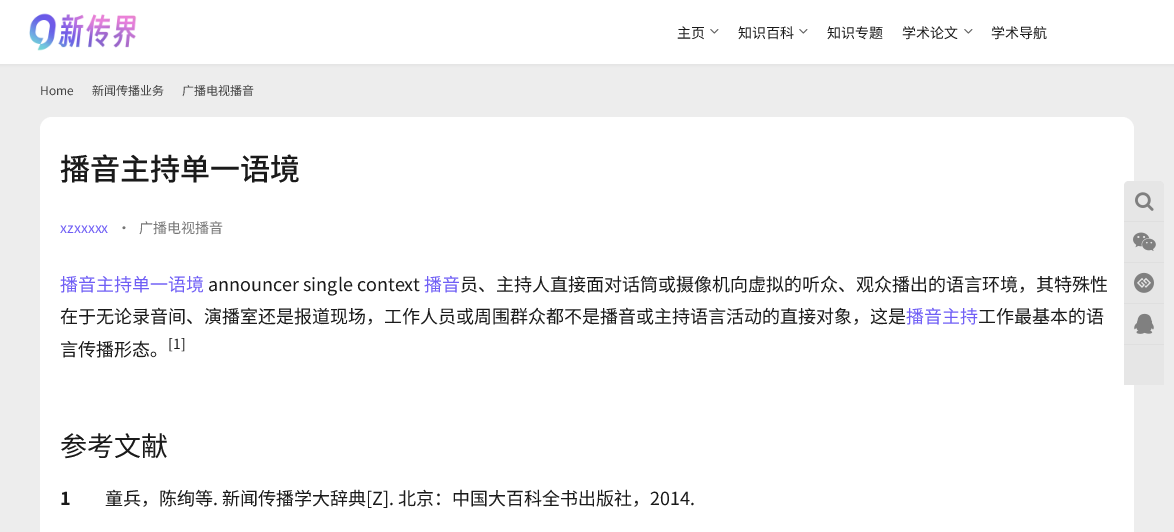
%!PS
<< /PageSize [1174 532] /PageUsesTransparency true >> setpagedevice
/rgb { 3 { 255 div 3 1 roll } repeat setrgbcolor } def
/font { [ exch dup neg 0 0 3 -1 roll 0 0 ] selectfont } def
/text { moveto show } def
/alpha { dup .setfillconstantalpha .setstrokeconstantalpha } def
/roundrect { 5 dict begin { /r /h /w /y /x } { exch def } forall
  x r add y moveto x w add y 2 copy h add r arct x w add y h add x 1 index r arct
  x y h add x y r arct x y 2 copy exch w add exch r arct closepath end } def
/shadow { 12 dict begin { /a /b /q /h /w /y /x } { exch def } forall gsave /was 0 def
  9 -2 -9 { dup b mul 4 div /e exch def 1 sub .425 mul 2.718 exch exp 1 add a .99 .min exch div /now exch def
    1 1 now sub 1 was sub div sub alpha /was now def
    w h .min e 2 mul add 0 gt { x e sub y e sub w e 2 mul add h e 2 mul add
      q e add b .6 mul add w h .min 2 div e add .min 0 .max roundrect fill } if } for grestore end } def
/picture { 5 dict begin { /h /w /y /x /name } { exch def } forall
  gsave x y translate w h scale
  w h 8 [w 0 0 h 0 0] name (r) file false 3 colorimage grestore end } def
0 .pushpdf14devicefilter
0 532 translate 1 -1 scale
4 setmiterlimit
237 237 237 rgb
0 0 1174 532 rectfill
26 26 26 rgb
-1 -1 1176 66 0 1.5 0.06 shadow
255 255 255 rgb
0 0 1174 64 rectfill
(img_01.rgb) 29 13 108 38 picture
(img_02.rgb) 710 29 9 5 picture
(img_02.rgb) 799 29 9 5 picture
(img_02.rgb) 964 29 9 5 picture
40 117 1094 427 12 roundrect fill
245 245 245 rgb
1129 181 moveto 30 0 rlineto 3 0 5 2 5 5 rcurveto 0 35 rlineto -40 0 rlineto 0 -35 rlineto 0 -3 2 -5 5 -5 rcurveto closepath fill
0.07 alpha
26 26 26 rgb
1129 181 moveto 30 0 rlineto 3 0 5 2 5 5 rcurveto 0 35 rlineto -40 0 rlineto 0 -35 rlineto 0 -3 2 -5 5 -5 rcurveto closepath fill
1 alpha
(img_03.rgb) 1135 192 19 19 picture
223 223 223 rgb
1124 221 40 1 rectfill
230 230 230 rgb
1124 222 40 40 rectfill
(img_04.rgb) 1133 232 23 19 picture
223 223 223 rgb
1124 262 40 1 rectfill
230 230 230 rgb
1124 263 40 40 rectfill
(img_05.rgb) 1134 272 20 21 picture
223 223 223 rgb
1124 303 40 1 rectfill
230 230 230 rgb
1124 304 40 40 rectfill
(img_06.rgb) 1134 313 20 21 picture
223 223 223 rgb
1124 344 40 1 rectfill
230 230 230 rgb
1124 345 40 40 rectfill
/NotoSansCJKSC-Regular 14 font
26 26 26 rgb
(主页) 677 38 text
(知识百科) 738 38 text
(知识专题) 827 38 text
(学术论文) 902 38 text
(学术导航) 991 38 text
/NotoSansCJKSC-Regular 12 font
68 68 68 rgb
(Home) 40 95 text
(新闻传播业务) 92 95 text
(广播电视播音) 182 95 text
/NotoSansCJKSC-Medium 30 font
26 26 26 rgb
(播音主持单一语境) 60 180 text
/NotoSansCJKSC-Regular 14 font
111 94 245 rgb
(xzxxxxx) 60 233 text
118 118 118 rgb
(•) 117 233 text
(广播电视播音) 139 233 text
/NotoSansCJKSC-Regular 18 font
111 94 245 rgb
(播音主持单一语境) 60 291 text
26 26 26 rgb
(announcer single context) 208 291 text
111 94 245 rgb
(播音) 424 291 text
26 26 26 rgb
(员、主持人直接面对话筒或摄像机向虚拟的听众、观众播出的语言环境，其特殊性) 460 291 text
(在于无论录音间、演播室还是报道现场，工作人员或周围群众都不是播音或主持语言活动的直接对象，这是) 60 323 text
111 94 245 rgb
(播音主持) 906 323 text
26 26 26 rgb
(工作最基本的语) 978 323 text
(言传播形态。) 60 356 text
/NotoSansCJKSC-Regular 14 font
([1]) 168 349 text
/NotoSansCJKSC-Regular 27 font
(参考文献) 60 456 text
/NotoSansCJKSC-Bold 18 font
(1) 60 505 text
/NotoSansCJKSC-Regular 18 font
(童兵，陈绚等. 新闻传播学大辞典[Z]. 北京：中国大百科全书出版社，2014.) 105 505 text
.poppdf14devicefilter showpage
